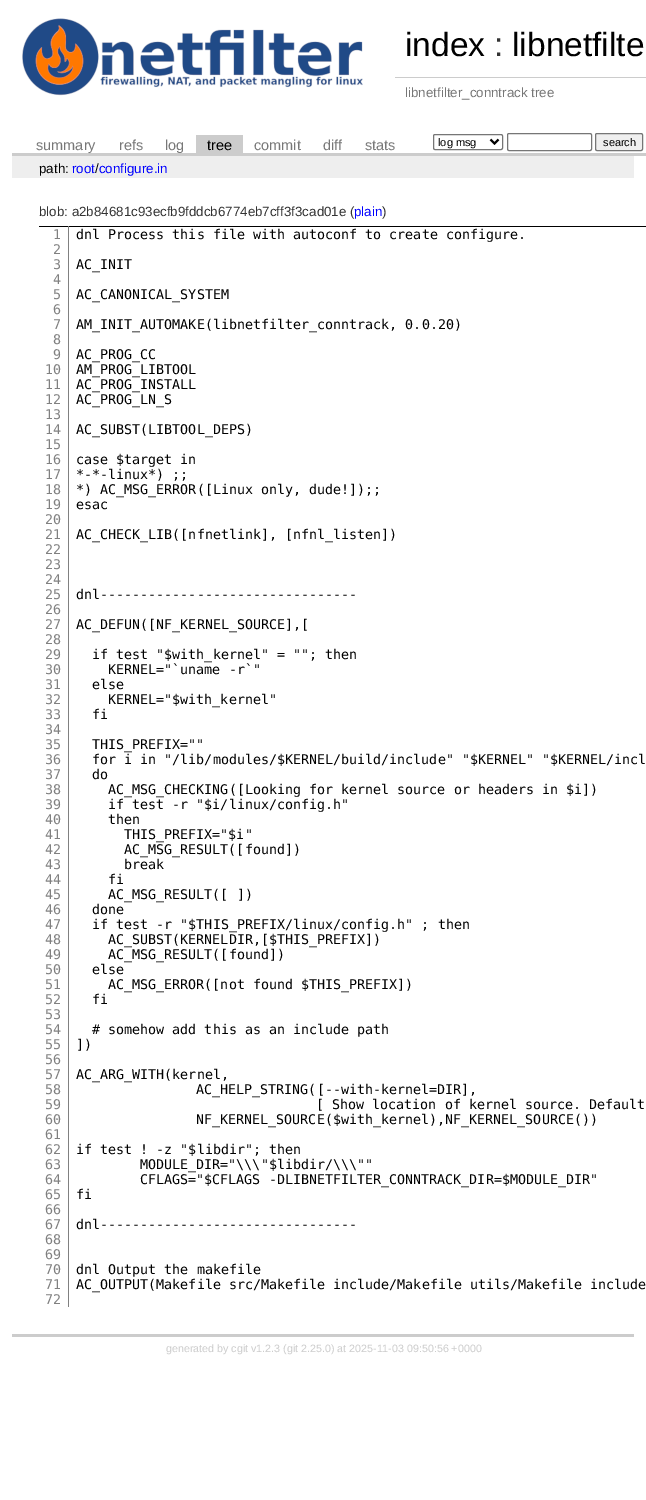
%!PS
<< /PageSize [646 1500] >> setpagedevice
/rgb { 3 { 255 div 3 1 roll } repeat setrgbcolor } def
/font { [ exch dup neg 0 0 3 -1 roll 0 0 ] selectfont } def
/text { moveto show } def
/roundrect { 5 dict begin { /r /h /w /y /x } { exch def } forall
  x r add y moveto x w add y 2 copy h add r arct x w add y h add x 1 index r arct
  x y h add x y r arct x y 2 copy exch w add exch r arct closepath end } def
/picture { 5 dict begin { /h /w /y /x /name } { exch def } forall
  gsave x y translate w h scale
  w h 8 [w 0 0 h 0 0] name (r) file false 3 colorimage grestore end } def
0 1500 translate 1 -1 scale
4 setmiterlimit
255 255 255 rgb
0 0 646 1500 rectfill
(img_01.rgb) 22 18 341 78 picture
204 204 204 rgb
395 77 251 1 rectfill
12 153 634 3 rectfill
196 135 47 18 rectfill
118 118 118 rgb
433.5 134.5 69 15 1.5 roundrect stroke
0 0 0 rgb
2 setlinewidth
490.5 139.5 moveto 4 4 rlineto 4 -4 rlineto stroke
118 118 118 rgb
1 setlinewidth
507.5 133.5 84 17 1.5 roundrect stroke
239 239 239 rgb
595.5 133.5 47 17 1.5 roundrect gsave fill grestore
118 118 118 rgb
stroke
238 238 238 rgb
12 156 622 22 rectfill
204 204 204 rgb
12 1334 622 3 rectfill
0 0 0 rgb
39 226 607 1 rectfill
128 128 128 rgb
68 226 1 1081 rectfill
/LiberationSans-Regular 33.5 font
0 0 0 rgb
(index) 405 56 text
51 51 51 rgb
(:) 494 56 text
0 0 0 rgb
(libnetfilte) 512 56 text
/LiberationSans-Regular 13.35 font
119 119 119 rgb
(libnetfilter_conntrack tree) 405 97 text
/LiberationSans-Regular 14.5 font
(summary) 36 150 text
(refs) 119 150 text
(log) 165 150 text
0 0 0 rgb
(tree) 207 150 text
119 119 119 rgb
(commit) 254 150 text
(diff) 323 150 text
(stats) 365 150 text
/LiberationSans-Regular 11 font
0 0 0 rgb
(log msg) 438 146 text
(search) 603 146 text
/LiberationSans-Regular 13.35 font
(path:) 39 173 text
0 0 255 rgb
(root configure.in) 72 173 text
0 0 0 rgb
(/) 95 173 text
51 51 51 rgb
(blob: a2b84681c93ecfb9fddcb6774eb7cff3f3cad01e \() 39 216 text
0 0 255 rgb
(plain) 354 216 text
51 51 51 rgb
(\)) 382 216 text
/DejaVuSansMono-Regular 13.35 font
128 128 128 rgb
(1) 53 239 text
(2) 53 254 text
(3) 53 269 text
(4) 53 284 text
(5) 53 299 text
(6) 53 314 text
(7) 53 329 text
(8) 53 344 text
(9) 53 359 text
(10) 45 374 text
(11) 45 389 text
(12) 45 404 text
(13) 45 419 text
(14) 45 434 text
(15) 45 449 text
(16) 45 464 text
(17) 45 479 text
(18) 45 494 text
(19) 45 509 text
(20) 45 524 text
(21) 45 539 text
(22) 45 554 text
(23) 45 569 text
(24) 45 584 text
(25) 45 599 text
(26) 45 614 text
(27) 45 629 text
(28) 45 644 text
(29) 45 659 text
(30) 45 674 text
(31) 45 689 text
(32) 45 704 text
(33) 45 719 text
(34) 45 734 text
(35) 45 749 text
(36) 45 764 text
(37) 45 779 text
(38) 45 794 text
(39) 45 809 text
(40) 45 824 text
(41) 45 839 text
(42) 45 854 text
(43) 45 869 text
(44) 45 884 text
(45) 45 899 text
(46) 45 914 text
(47) 45 929 text
(48) 45 944 text
(49) 45 959 text
(50) 45 974 text
(51) 45 989 text
(52) 45 1004 text
(53) 45 1019 text
(54) 45 1034 text
(55) 45 1049 text
(56) 45 1064 text
(57) 45 1079 text
(58) 45 1094 text
(59) 45 1109 text
(60) 45 1124 text
(61) 45 1139 text
(62) 45 1154 text
(63) 45 1169 text
(64) 45 1184 text
(65) 45 1199 text
(66) 45 1214 text
(67) 45 1229 text
(68) 45 1244 text
(69) 45 1259 text
(70) 45 1274 text
(71) 45 1289 text
(72) 45 1304 text
0 0 0 rgb
(dnl Process this file with autoconf to create configure.) 76 239 text
(AC_INIT) 76 269 text
(AC_CANONICAL_SYSTEM) 76 299 text
(AM_INIT_AUTOMAKE\(libnetfilter_conntrack, 0.0.20\)) 76 329 text
(AC_PROG_CC) 76 359 text
(AM_PROG_LIBTOOL) 76 374 text
(AC_PROG_INSTALL) 76 389 text
(AC_PROG_LN_S) 76 404 text
(AC_SUBST\(LIBTOOL_DEPS\)) 76 434 text
(case $target in) 76 464 text
(*-*-linux*\) ;;) 76 479 text
(*\) AC_MSG_ERROR\([Linux only, dude!]\);;) 76 494 text
(esac) 76 509 text
(AC_CHECK_LIB\([nfnetlink], [nfnl_listen]\)) 76 539 text
(dnl--------------------------------) 76 599 text
(AC_DEFUN\([NF_KERNEL_SOURCE],[) 76 629 text
(if test "$with_kernel" = ""; then) 92 659 text
(KERNEL="`uname -r`") 108 674 text
(else) 92 689 text
(KERNEL="$with_kernel") 108 704 text
(fi) 92 719 text
(THIS_PREFIX="") 92 749 text
(for i in "/lib/modules/$KERNEL/build/include" "$KERNEL" "$KERNEL/incl) 92 764 text
(do) 92 779 text
(AC_MSG_CHECKING\([Looking for kernel source or headers in $i]\)) 108 794 text
(if test -r "$i/linux/config.h") 108 809 text
(then) 108 824 text
(THIS_PREFIX="$i") 124 839 text
(AC_MSG_RESULT\([found]\)) 124 854 text
(break) 124 869 text
(fi) 108 884 text
(AC_MSG_RESULT\([ ]\)) 108 899 text
(done) 92 914 text
(if test -r "$THIS_PREFIX/linux/config.h" ; then) 92 929 text
(AC_SUBST\(KERNELDIR,[$THIS_PREFIX]\)) 108 944 text
(AC_MSG_RESULT\([found]\)) 108 959 text
(else) 92 974 text
(AC_MSG_ERROR\([not found $THIS_PREFIX]\)) 108 989 text
(fi) 92 1004 text
(# somehow add this as an include path) 92 1034 text
(]\)) 76 1049 text
(AC_ARG_WITH\(kernel,) 76 1079 text
(AC_HELP_STRING\([--with-kernel=DIR],) 196 1094 text
([ Show location of kernel source. Default) 316 1109 text
(NF_KERNEL_SOURCE\($with_kernel\),NF_KERNEL_SOURCE\(\)\)) 196 1124 text
(if test ! -z "$libdir"; then) 76 1154 text
(MODULE_DIR="\\\\\\"$libdir/\\\\\\"") 140 1169 text
(CFLAGS="$CFLAGS -DLIBNETFILTER_CONNTRACK_DIR=$MODULE_DIR") 140 1184 text
(fi) 76 1199 text
(dnl--------------------------------) 76 1229 text
(dnl Output the makefile) 76 1274 text
(AC_OUTPUT\(Makefile src/Makefile include/Makefile utils/Makefile include) 76 1289 text
/LiberationSans-Regular 10.7 font
204 204 204 rgb
(generated by cgit v1.2.3 \(git 2.25.0\) at 2025-11-03 09:50:56 +0000) 166 1352 text
showpage
